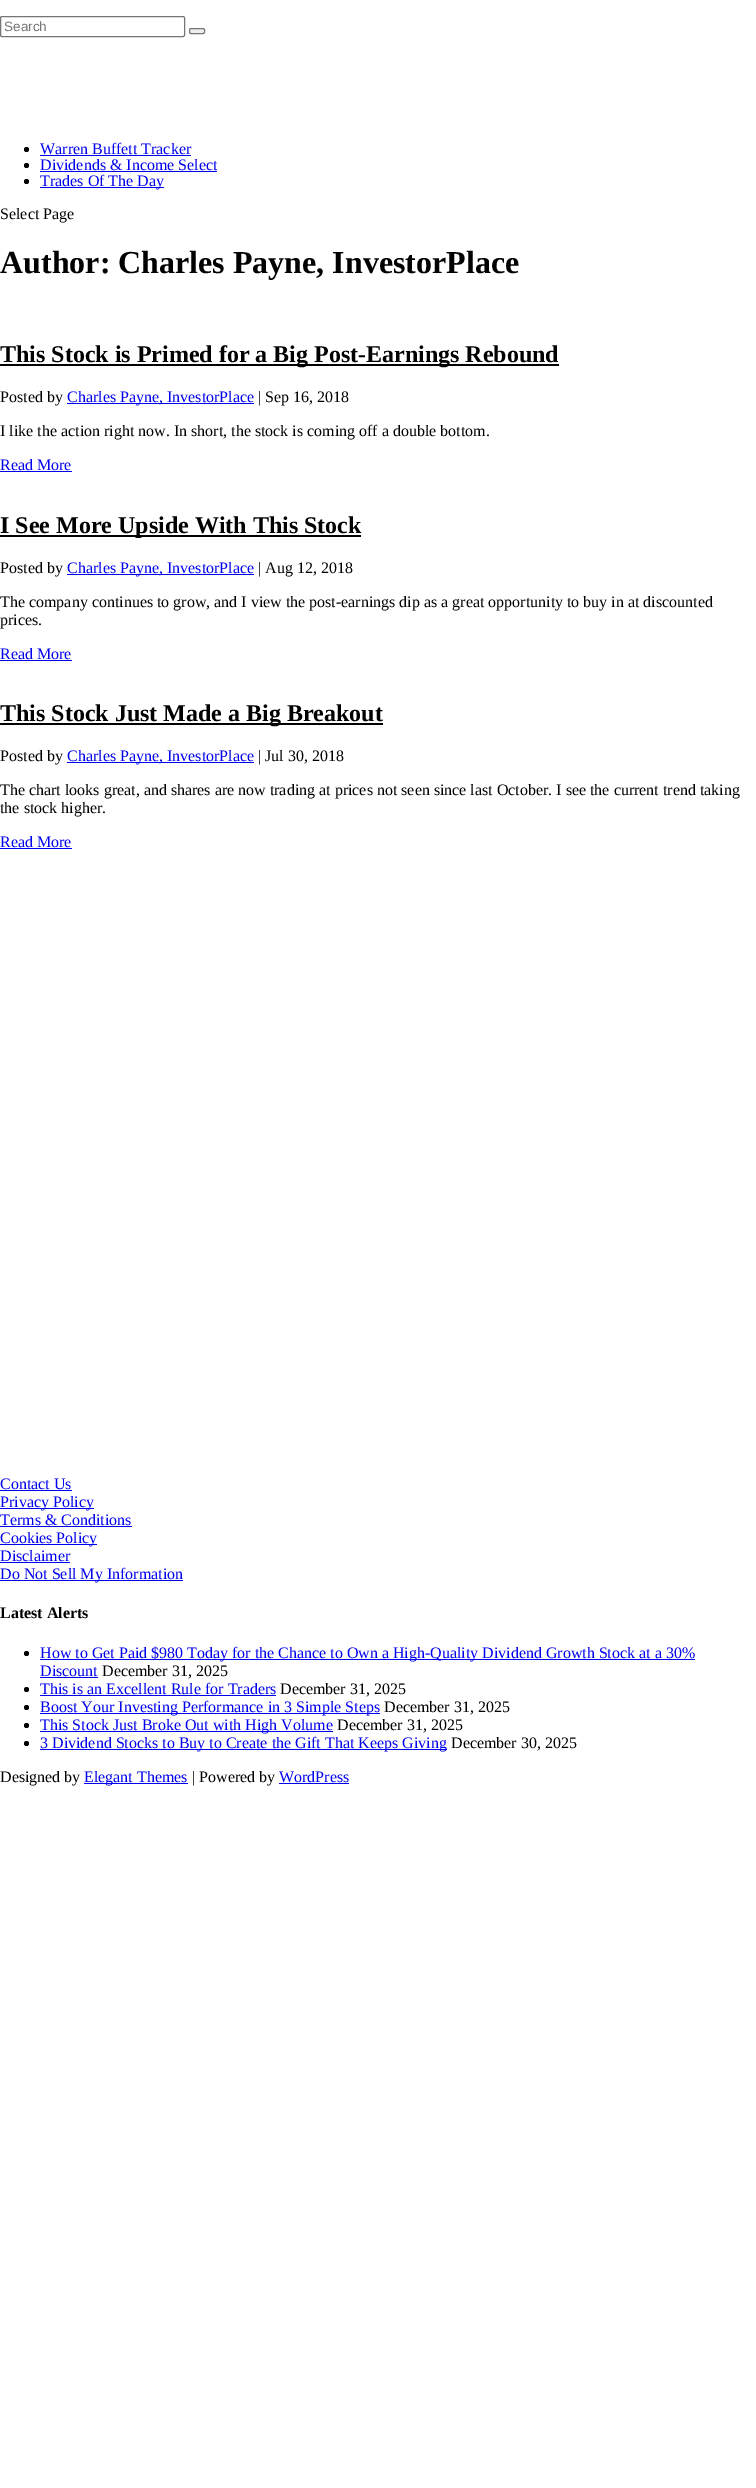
%!PS
<< /PageSize [756 2488] >> setpagedevice
/rgb { 3 { 255 div 3 1 roll } repeat setrgbcolor } def
/font { [ exch dup neg 0 0 3 -1 roll 0 0 ] selectfont } def
/text { moveto show } def
/circle { newpath 0 360 arc closepath } def
/roundrect { 5 dict begin { /r /h /w /y /x } { exch def } forall
  x r add y moveto x w add y 2 copy h add r arct x w add y h add x 1 index r arct
  x y h add x y r arct x y 2 copy exch w add exch r arct closepath end } def
0 2488 translate 1 -1 scale
4 setmiterlimit
255 255 255 rgb
0 0 756 2488 rectfill
118 118 118 rgb
0.5 16.5 184 20 1.5 roundrect stroke
239 239 239 rgb
189.5 28.5 15 5 1.5 roundrect gsave fill grestore
118 118 118 rgb
stroke
0 0 0 rgb
26.5 149.5 2.5 circle fill
0 0 238 rgb
40 155 151 1 rectfill
0 0 0 rgb
26.5 165.5 2.5 circle fill
0 0 238 rgb
40 171 177 1 rectfill
0 0 0 rgb
26.5 181.5 2.5 circle fill
0 0 238 rgb
40 187 124 1 rectfill
0 0 0 rgb
0 364 559 2 rectfill
0 0 238 rgb
67 403 187 1 rectfill
0 471 72 1 rectfill
0 0 0 rgb
0 535 361 2 rectfill
0 0 238 rgb
67 574 187 1 rectfill
0 660 72 1 rectfill
0 0 0 rgb
0 723 383 2 rectfill
0 0 238 rgb
67 762 187 1 rectfill
0 848 72 1 rectfill
0 1490 72 1 rectfill
0 1508 94 1 rectfill
0 1526 132 1 rectfill
0 1544 97 1 rectfill
0 1562 70 1 rectfill
0 1580 183 1 rectfill
0 0 0 rgb
26.5 1653.5 2.5 circle fill
0 0 238 rgb
40 1659 655 1 rectfill
40 1677 58 1 rectfill
0 0 0 rgb
26.5 1689.5 2.5 circle fill
0 0 238 rgb
40 1695 236 1 rectfill
0 0 0 rgb
26.5 1707.5 2.5 circle fill
0 0 238 rgb
40 1713 340 1 rectfill
0 0 0 rgb
26.5 1725.5 2.5 circle fill
0 0 238 rgb
40 1731 293 1 rectfill
0 0 0 rgb
26.5 1743.5 2.5 circle fill
0 0 238 rgb
40 1749 407 1 rectfill
84 1783 104 1 rectfill
279 1783 70 1 rectfill
/LiberationSans-Regular 13.5 font
117 117 117 rgb
(Search) 4 31 text
/LiberationSerif-Regular 16 font
0 0 238 rgb
(Warren Buffett Tracker) 40 154 text
(Dividends & Income Select) 40 170 text
(Trades Of The Day) 40 186 text
0 0 0 rgb
(Select Page) 0 219 text
/LiberationSerif-Bold 32 font
(Author: Charles Payne, InvestorPlace) 0 273 text
/LiberationSerif-Bold 24 font
(This Stock is Primed for a Big Post-Earnings Rebound) 0 362 text
/LiberationSerif-Regular 16 font
(Posted by) 0 402 text
0 0 238 rgb
(Charles Payne, InvestorPlace) 67 402 text
0 0 0 rgb
(| Sep 16, 2018) 258 402 text
(I like the action right now. In short, the stock is coming off a double bottom.) 0 436 text
0 0 238 rgb
(Read More) 0 470 text
/LiberationSerif-Bold 24 font
0 0 0 rgb
(I See More Upside With This Stock) 0 533 text
/LiberationSerif-Regular 16 font
(Posted by) 0 573 text
0 0 238 rgb
(Charles Payne, InvestorPlace) 67 573 text
0 0 0 rgb
(| Aug 12, 2018) 258 573 text
(The company continues to grow, and I view the post-earnings dip as a great opportunity to buy in at discounted) 0 607 text
(prices.) 0 625 text
0 0 238 rgb
(Read More) 0 659 text
/LiberationSerif-Bold 24 font
0 0 0 rgb
(This Stock Just Made a Big Breakout) 0 721 text
/LiberationSerif-Regular 16 font
(Posted by) 0 761 text
0 0 238 rgb
(Charles Payne, InvestorPlace) 67 761 text
0 0 0 rgb
(| Jul 30, 2018) 258 761 text
(The chart looks great, and shares are now trading at prices not seen since last October. I see the current trend taking) 0 795 text
(the stock higher.) 0 813 text
0 0 238 rgb
(Read More) 0 847 text
(Contact Us) 0 1489 text
(Privacy Policy) 0 1507 text
(Terms & Conditions) 0 1525 text
(Cookies Policy) 0 1543 text
(Disclaimer) 0 1561 text
(Do Not Sell My Information) 0 1579 text
/LiberationSerif-Bold 16 font
0 0 0 rgb
(Latest Alerts) 0 1618 text
/LiberationSerif-Regular 16 font
0 0 238 rgb
(How to Get Paid $980 Today for the Chance to Own a High-Quality Dividend Growth Stock at a 30%) 40 1658 text
(Discount) 40 1676 text
0 0 0 rgb
(December 31, 2025) 102 1676 text
0 0 238 rgb
(This is an Excellent Rule for Traders) 40 1694 text
0 0 0 rgb
(December 31, 2025) 280 1694 text
0 0 238 rgb
(Boost Your Investing Performance in 3 Simple Steps) 40 1712 text
0 0 0 rgb
(December 31, 2025) 384 1712 text
0 0 238 rgb
(This Stock Just Broke Out with High Volume) 40 1730 text
0 0 0 rgb
(December 31, 2025) 337 1730 text
0 0 238 rgb
(3 Dividend Stocks to Buy to Create the Gift That Keeps Giving) 40 1748 text
0 0 0 rgb
(December 30, 2025) 451 1748 text
(Designed by) 0 1782 text
0 0 238 rgb
(Elegant Themes) 84 1782 text
0 0 0 rgb
(| Powered by) 192 1782 text
0 0 238 rgb
(WordPress) 279 1782 text
showpage
